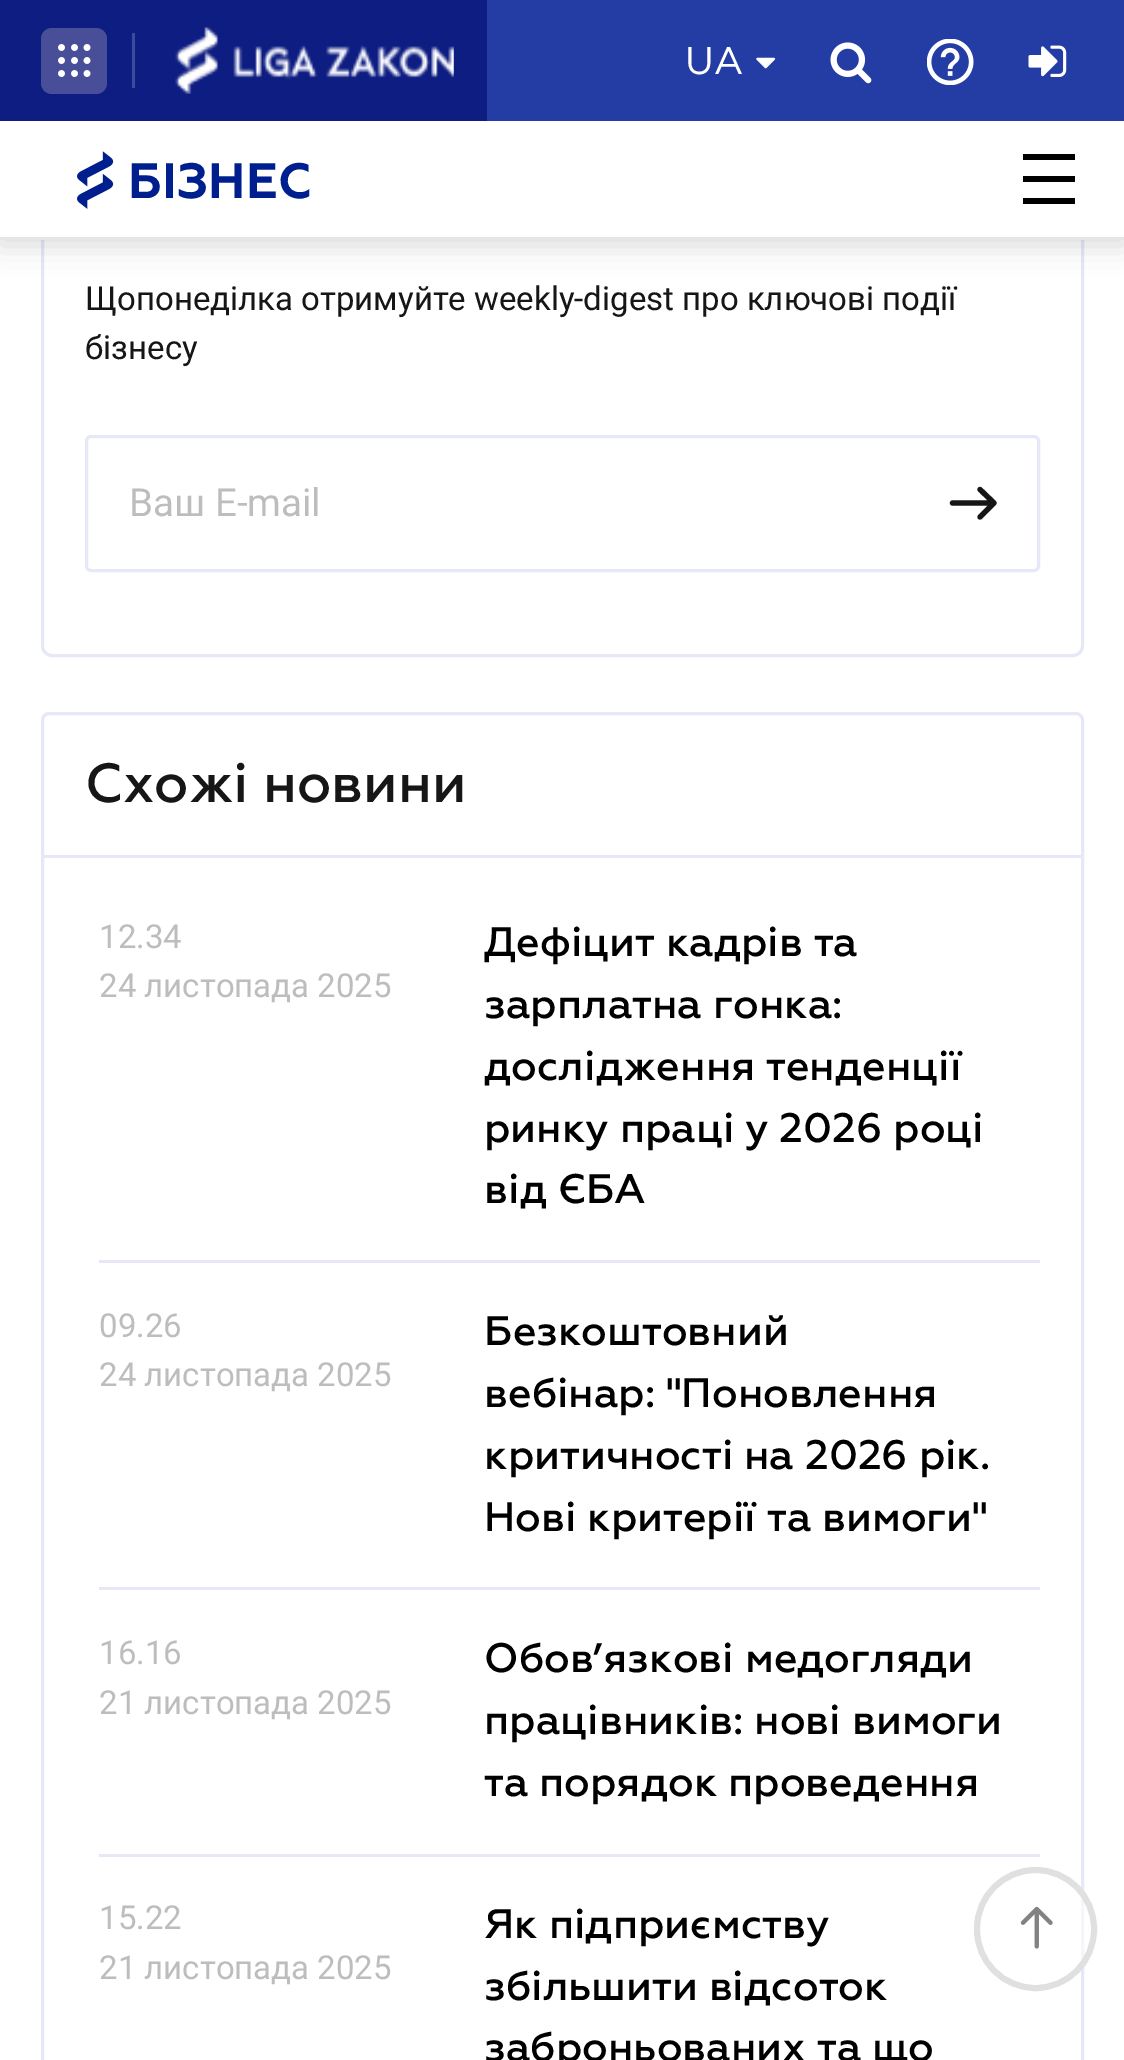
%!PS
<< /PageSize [1124 2060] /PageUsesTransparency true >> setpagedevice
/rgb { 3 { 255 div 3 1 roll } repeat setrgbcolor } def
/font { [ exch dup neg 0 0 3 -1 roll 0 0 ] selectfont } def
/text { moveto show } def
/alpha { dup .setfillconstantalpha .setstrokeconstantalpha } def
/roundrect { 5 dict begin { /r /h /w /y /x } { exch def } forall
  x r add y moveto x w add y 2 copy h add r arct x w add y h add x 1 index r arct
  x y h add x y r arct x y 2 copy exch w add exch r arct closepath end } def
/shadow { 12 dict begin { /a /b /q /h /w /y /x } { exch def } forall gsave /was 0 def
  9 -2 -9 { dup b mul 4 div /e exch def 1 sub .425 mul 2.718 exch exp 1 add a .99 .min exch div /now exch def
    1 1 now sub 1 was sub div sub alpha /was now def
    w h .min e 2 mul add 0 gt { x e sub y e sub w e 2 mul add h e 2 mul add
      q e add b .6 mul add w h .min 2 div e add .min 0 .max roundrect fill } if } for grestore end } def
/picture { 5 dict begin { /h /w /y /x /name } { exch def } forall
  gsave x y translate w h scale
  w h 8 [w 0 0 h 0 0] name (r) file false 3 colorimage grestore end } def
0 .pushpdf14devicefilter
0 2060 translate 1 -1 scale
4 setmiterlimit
255 255 255 rgb
0 0 1124 2060 rectfill
230 232 247 rgb
3 setlinewidth
42.5 100.5 1040 555 9.5 roundrect stroke
0 0 0 rgb
0 127 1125 118 0 14 0.15 shadow
36 61 164 rgb
487 0 637 121 rectfill
14 29 130 rgb
0 0 487 121 rectfill
72 79 152 rgb
41 28 66 66 11 roundrect fill
(img_01.rgb) 58 44 33 33 picture
62 74 155 rgb
132 33 3 55 rectfill
(img_02.rgb) 175 27 279 67 picture
(img_03.rgb) 756 57 20 12 picture
(img_04.rgb) 830 42 42 42 picture
(img_05.rgb) 927 39 47 46 picture
(img_06.rgb) 1028 45 39 32 picture
255 255 255 rgb
0 121 1124 116 rectfill
230 230 230 rgb
0 237 1124 3 rectfill
(img_07.rgb) 77 151 37 58 picture
0 0 0 rgb
1023 154 52 6 rectfill
1023 176 52 6 rectfill
1023 198 52 6 rectfill
230 232 247 rgb
86.5 436.5 952 134 4.5 roundrect stroke
22 22 22 rgb
5.2 setlinewidth
1 setlinecap
1 setlinejoin
994 503 moveto -41.5 0 rlineto 994 503 moveto -14 -13.5 rlineto 994 503 moveto -14 14 rlineto stroke
230 232 247 rgb
3 setlinewidth
0 setlinecap
0 setlinejoin
49 713.5 moveto 1027 0 rlineto 3.5 0 6.5 3 6.5 6.5 rcurveto 0 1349.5 rlineto -1040 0 rlineto 0 -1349.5 rlineto 0 -3.5 3 -6.5 6.5 -6.5 rcurveto closepath stroke
44 855 1037 3 rectfill
99 1260 941 3 rectfill
99 1587 941 3 rectfill
99 1854 941 3 rectfill
0.58 alpha
255 255 255 rgb
977 1870 117 118 58.5 roundrect fill
1 alpha
224 224 224 rgb
6 setlinewidth
977 1870 117 118 58.5 roundrect stroke
(img_08.rgb) 1020 1906 33 43 picture
/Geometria-Regular 38.5 font
255 255 255 rgb
(UA) 685 74 text
/Geometria-Bold 49.5 font
0 31 142 rgb
(БІЗНЕС) 128 198 text
/Roboto-Regular 33 font
22 22 22 rgb
(Щопонеділка отримуйте weekly-digest про ключові події) 85 310 text
(бізнесу) 85 359 text
/Roboto-Regular 38.5 font
189 189 189 rgb
(Ваш E-mail) 129 516 text
/Geometria-Medium 55 font
22 22 22 rgb
(Схожі новини) 85 802 text
/Roboto-Regular 33 font
189 189 189 rgb
(12.34) 99 948 text
(24 листопада 2025) 99 997 text
/Geometria-Medium 41.25 font
0 0 0 rgb
(Дефіцит кадрів та) 484 956 text
(зарплатна гонка:) 484 1018 text
(дослідження тенденції) 484 1080 text
(ринку праці у 2026 році) 484 1142 text
(від ЄБА) 484 1203 text
/Roboto-Regular 33 font
189 189 189 rgb
(09.26) 99 1337 text
(24 листопада 2025) 99 1386 text
/Geometria-Medium 41.25 font
0 0 0 rgb
(Безкоштовний) 484 1345 text
(вебінар: "Поновлення) 484 1407 text
(критичності на 2026 рік.) 484 1469 text
(Нові критерії та вимоги") 484 1531 text
/Roboto-Regular 33 font
189 189 189 rgb
(16.16) 99 1664 text
(21 листопада 2025) 99 1714 text
/Geometria-Medium 41.25 font
0 0 0 rgb
(Обов’язкові медогляди) 484 1672 text
(працівників: нові вимоги) 484 1734 text
(та порядок проведення) 484 1796 text
/Roboto-Regular 33 font
189 189 189 rgb
(15.22) 99 1929 text
(21 листопада 2025) 99 1979 text
/Geometria-Medium 41.25 font
0 0 0 rgb
(Як підприємству) 484 1938 text
(збільшити відсоток) 484 2000 text
(заброньованих та що) 484 2061 text
.poppdf14devicefilter showpage
